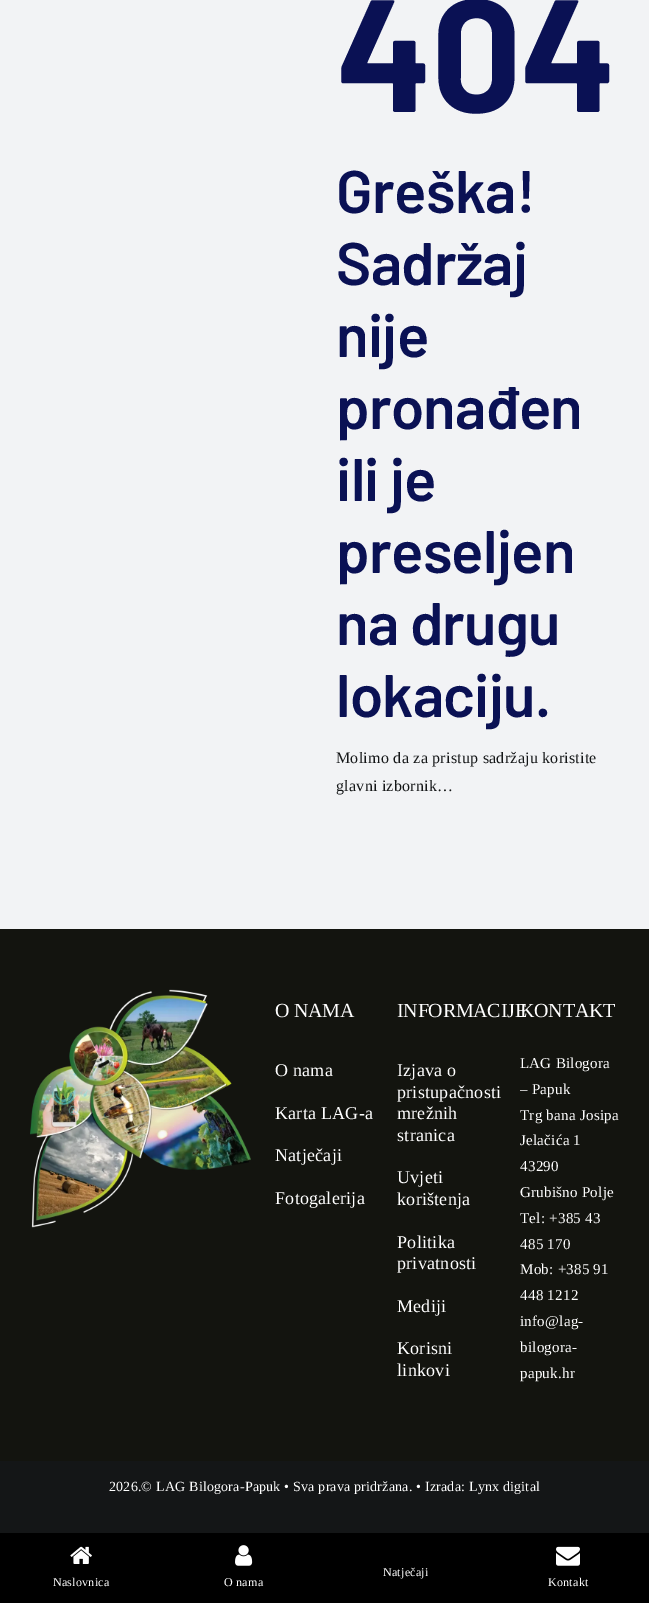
%!PS
<< /PageSize [649 1603] /PageUsesTransparency true >> setpagedevice
/rgb { 3 { 255 div 3 1 roll } repeat setrgbcolor } def
/font { [ exch dup neg 0 0 3 -1 roll 0 0 ] selectfont } def
/alpha { dup .setfillconstantalpha .setstrokeconstantalpha } def
/roundrect { 5 dict begin { /r /h /w /y /x } { exch def } forall
  x r add y moveto x w add y 2 copy h add r arct x w add y h add x 1 index r arct
  x y h add x y r arct x y 2 copy exch w add exch r arct closepath end } def
/shadow { 12 dict begin { /a /b /q /h /w /y /x } { exch def } forall gsave /was 0 def
  9 -2 -9 { dup b mul 4 div /e exch def 1 sub .425 mul 2.718 exch exp 1 add a .99 .min exch div /now exch def
    1 1 now sub 1 was sub div sub alpha /was now def
    w h .min e 2 mul add 0 gt { x e sub y e sub w e 2 mul add h e 2 mul add
      q e add b .6 mul add w h .min 2 div e add .min 0 .max roundrect fill } if } for grestore end } def
/picture { 5 dict begin { /h /w /y /x /name } { exch def } forall
  gsave x y translate w h scale
  w h 8 [w 0 0 h 0 0] name (r) file false 3 colorimage grestore end } def
0 .pushpdf14devicefilter
0 1603 translate 1 -1 scale
4 setmiterlimit
242 243 245 rgb
0 0 649 1603 rectfill
19 20 15 rgb
0 929 649 532 rectfill
(img_01.rgb) 30 989 221 239 picture
20 22 23 rgb
0 1461 649 72 rectfill
0 0 0 rgb
0 1528 649 70 0 5 0.1 shadow
0 1533 649 70 rectfill
(img_02.rgb) 70 1546 22 18 picture
(img_03.rgb) 235 1545 18 21 picture
(img_04.rgb) 556 1546 24 20 picture
/Barlow-Bold 160 font
10 17 84 rgb
336 112 moveto -2 0 (404) ashow
/Barlow-SemiBold 60 font
336 213 moveto -0.75 0 (Greška!) ashow
336 285 moveto -0.75 0 (Sadržaj) ashow
336 357 moveto -0.75 0 (nije) ashow
336 429 moveto -0.75 0 (pronađen) ashow
336 501 moveto -0.75 0 (ili je) ashow
336 573 moveto -0.75 0 (preseljen) ashow
336 645 moveto -0.75 0 (na drugu) ashow
336 717 moveto -0.75 0 (lokaciju.) ashow
/LiberationSerif-Regular 16 font
20 22 23 rgb
336 763 moveto 0.25 0 (Molimo da za pristup sadržaju koristite) ashow
336 791 moveto 0.25 0 (glavni izbornik…) ashow
/LiberationSerif-Regular 20 font
255 255 255 rgb
275 1017 moveto -0.25 0 (O NAMA) ashow
/LiberationSerif-Regular 18 font
275 1076 moveto 0.25 0 (O nama) ashow
275 1119 moveto 0.25 0 (Karta LAG-a) ashow
275 1161 moveto 0.25 0 (Natječaji) ashow
275 1204 moveto 0.25 0 (Fotogalerija) ashow
/LiberationSerif-Regular 20 font
397 1017 moveto -0.25 0 (INFORMACIJE) ashow
/LiberationSerif-Regular 18 font
397 1076 moveto 0.25 0 (Izjava o) ashow
397 1098 moveto 0.25 0 (pristupačnosti) ashow
397 1119 moveto 0.25 0 (mrežnih) ashow
397 1141 moveto 0.25 0 (stranica) ashow
397 1183 moveto 0.25 0 (Uvjeti) ashow
397 1205 moveto 0.25 0 (korištenja) ashow
397 1248 moveto 0.25 0 (Politika) ashow
397 1269 moveto 0.25 0 (privatnosti) ashow
397 1312 moveto 0.25 0 (Mediji) ashow
397 1354 moveto 0.25 0 (Korisni) ashow
397 1376 moveto 0.25 0 (linkovi) ashow
/LiberationSerif-Regular 20 font
520 1017 moveto -0.25 0 (KONTAKT) ashow
/LiberationSerif-Regular 15 font
520 1068 moveto 0.25 0 (LAG Bilogora) ashow
520 1094 moveto 0.25 0 (– Papuk) ashow
520 1120 moveto 0.25 0 (Trg bana Josipa) ashow
520 1145 moveto 0.25 0 (Jelačića 1) ashow
520 1171 moveto 0.25 0 (43290) ashow
520 1197 moveto 0.25 0 (Grubišno Polje) ashow
520 1223 moveto 0.25 0 (Tel: +385 43) ashow
520 1249 moveto 0.25 0 (485 170) ashow
520 1274 moveto 0.25 0 (Mob: +385 91) ashow
520 1300 moveto 0.25 0 (448 1212) ashow
520 1326 moveto 0.25 0 (info@lag-) ashow
520 1352 moveto 0.25 0 (bilogora-) ashow
520 1378 moveto 0.25 0 (papuk.hr) ashow
/LiberationSerif-Regular 14 font
109 1491 moveto 0.2 0 (2026.© LAG Bilogora-Papuk • Sva prava pridržana. • Izrada: Lynx digital) ashow
/LiberationSerif-Regular 12 font
383 1576 moveto 0.25 0 (Natječaji) ashow
53 1586 moveto 0.25 0 (Naslovnica) ashow
224 1586 moveto 0.25 0 (O nama) ashow
548 1586 moveto 0.25 0 (Kontakt) ashow
.poppdf14devicefilter showpage
